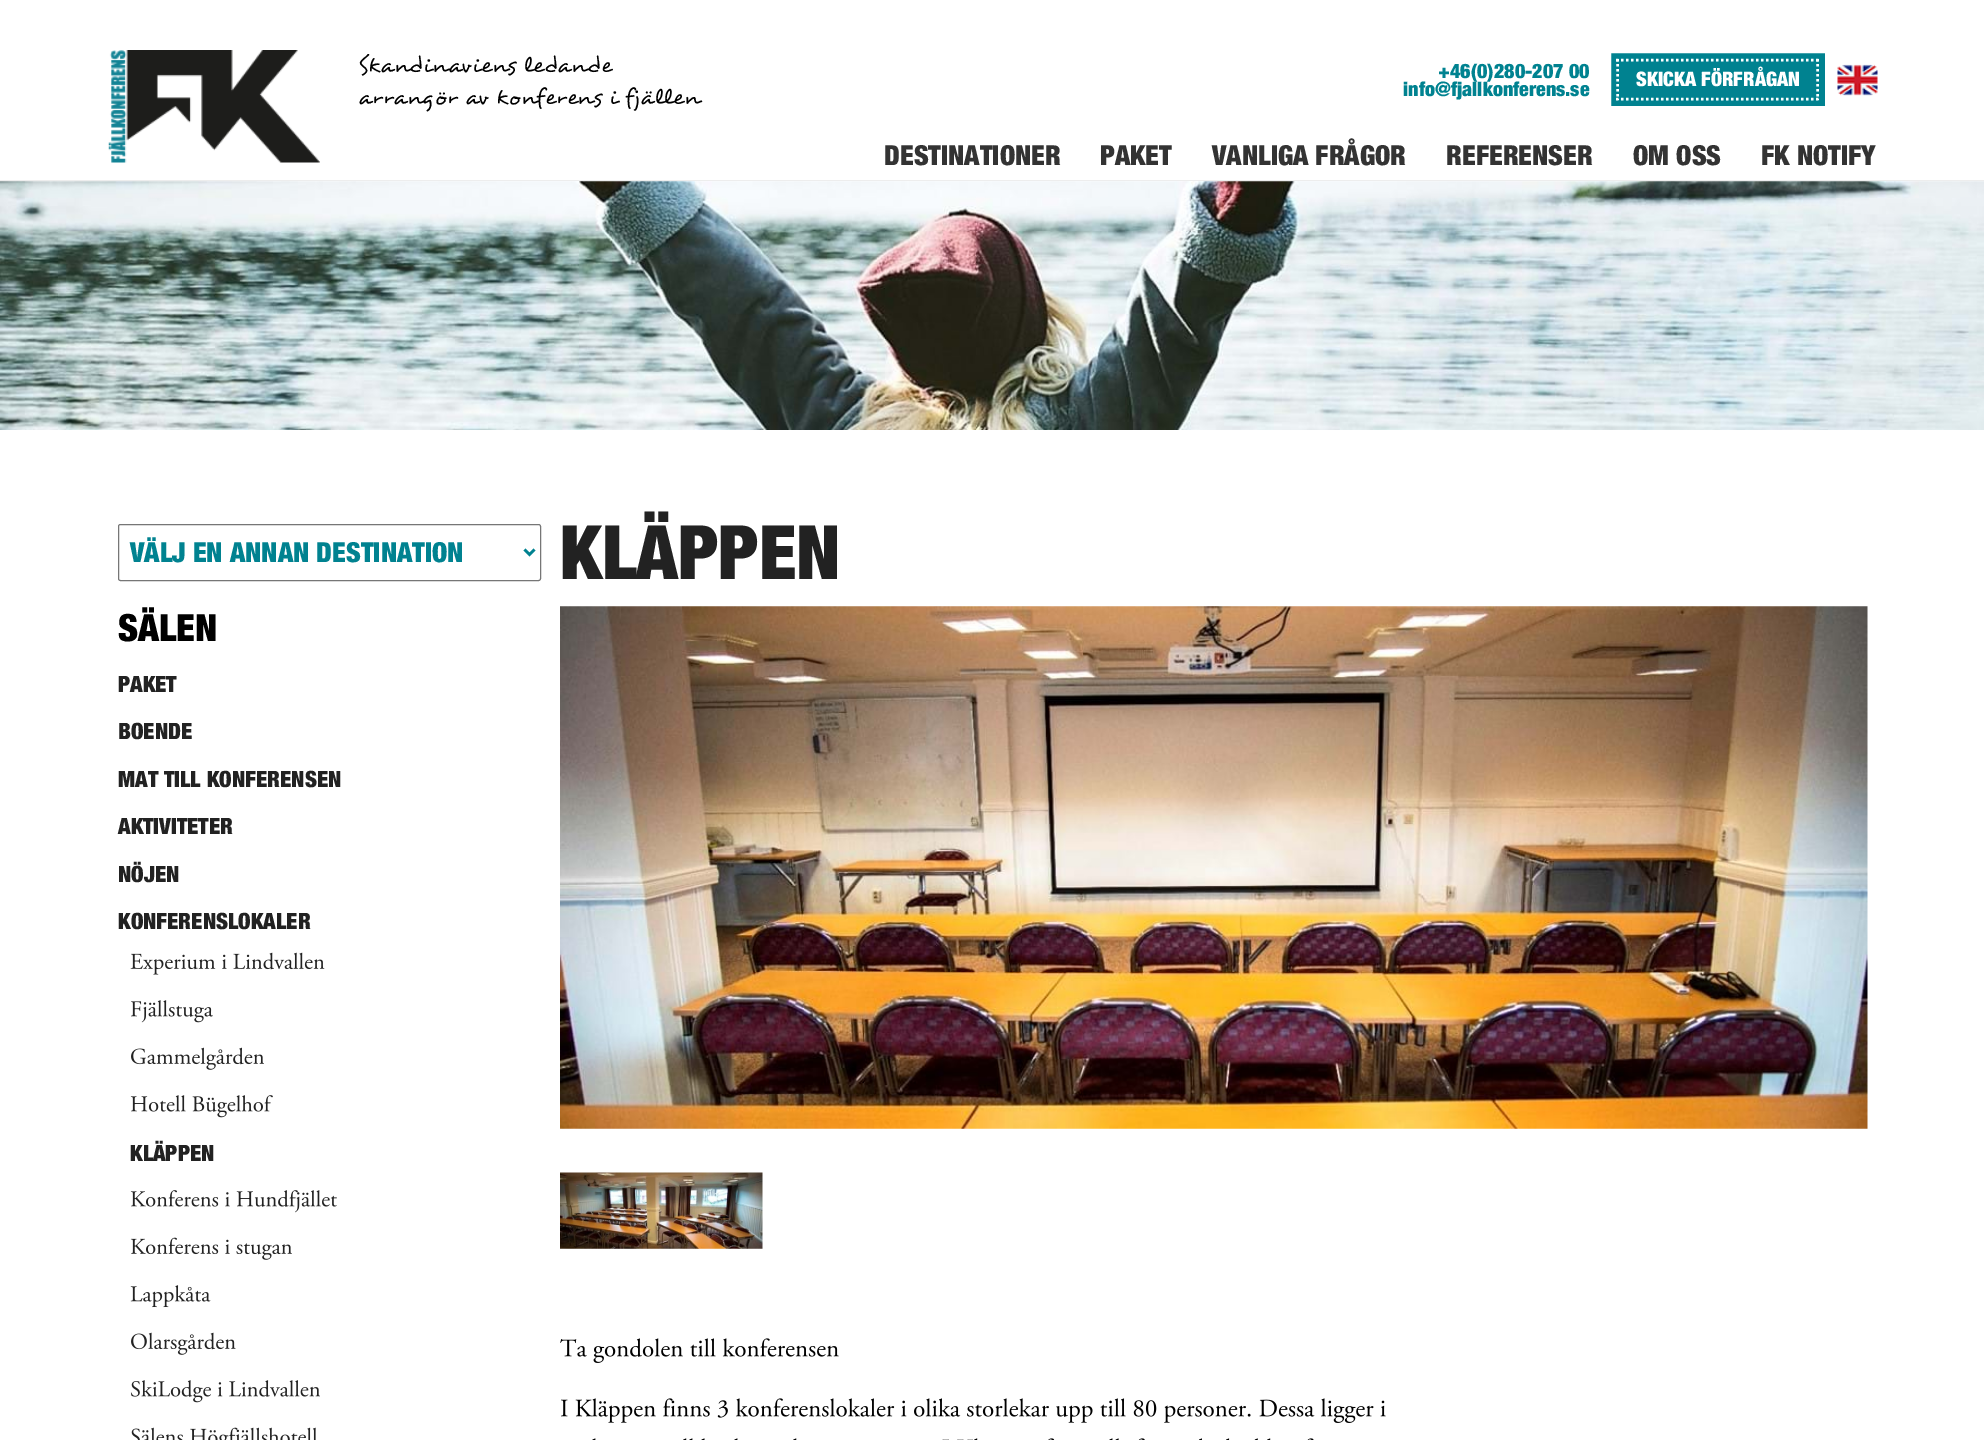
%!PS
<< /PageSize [1984 1440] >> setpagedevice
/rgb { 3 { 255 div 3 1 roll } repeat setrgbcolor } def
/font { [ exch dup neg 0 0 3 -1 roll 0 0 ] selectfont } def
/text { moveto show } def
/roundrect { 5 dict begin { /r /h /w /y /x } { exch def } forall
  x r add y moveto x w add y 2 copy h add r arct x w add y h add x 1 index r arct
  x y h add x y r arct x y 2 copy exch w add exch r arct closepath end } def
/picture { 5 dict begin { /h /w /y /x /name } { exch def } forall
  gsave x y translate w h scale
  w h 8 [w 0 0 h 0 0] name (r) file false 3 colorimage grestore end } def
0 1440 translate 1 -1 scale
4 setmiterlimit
255 255 255 rgb
0 0 1984 1440 rectfill
237 237 237 rgb
0 180 1984 1 rectfill
(img_01.rgb) 108 50 212 113 picture
0 130 144 rgb
1609.5 51.5 217 56 1 roundrect gsave fill grestore
255 255 255 rgb
3 setlinewidth
stroke
2.5 setlinewidth
[2.5 2.5] 0 setdash
1616 60 moveto 203 0 rlineto stroke
1817.5 59 moveto 0 41 rlineto stroke
1616 99 moveto 203 0 rlineto stroke
1617.5 59 moveto 0 41 rlineto stroke
(img_02.rgb) 1837 64 41 32 picture
(img_03.rgb) 0 181 1984 249 picture
118 118 118 rgb
1 setlinewidth
[] 0 setdash
118.5 524.5 422 56 2 roundrect stroke
0 130 144 rgb
2.5 setlinewidth
524.5 549.5 moveto 5 5 rlineto 5 -5 rlineto stroke
(img_04.rgb) 130 952 195 23 picture
(img_05.rgb) 131 1000 82 23 picture
(img_06.rgb) 131 1047 133 23 picture
(img_07.rgb) 130 1095 143 23 picture
(img_08.rgb) 130 1190 207 23 picture
(img_09.rgb) 130 1237 162 23 picture
(img_10.rgb) 130 1285 81 23 picture
(img_11.rgb) 131 1332 105 23 picture
(img_12.rgb) 130 1380 190 23 picture
(img_13.rgb) 131 1427 185 13 picture
(img_14.rgb) 560 606 1308 523 picture
(img_15.rgb) 560 1172 203 77 picture
(img_16.rgb) 560 1338 279 25 picture
(img_17.rgb) 561 1398 825 25 picture
(img_18.rgb) 592 1438 722 2 picture
/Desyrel-Regular 22.5 font
0 0 0 rgb
(Skandinaviens ledande) 358 71 text
(arrangör av konferens i fjällen) 358 103 text
/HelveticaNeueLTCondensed-Black 20 font
0 130 144 rgb
(+46\(0\)280-207 00) 1438 78 text
(info@fjallkonferens.se) 1403 96 text
255 255 255 rgb
(SKICKA FÖRFRÅGAN) 1636 86 text
/HelveticaNeueLTCondensed-Black 27.5 font
51 51 51 rgb
(DESTINATIONER) 884 165 text
(PAKET) 1100 165 text
(VANLIGA FRÅGOR) 1212 165 text
(REFERENSER) 1446 165 text
(OM OSS) 1633 165 text
(FK NOTIFY) 1761 165 text
0 130 144 rgb
(VÄLJ EN ANNAN DESTINATION) 130 562 text
/HelveticaNeueLTCondensed-Black 37.5 font
0 0 0 rgb
(SÄLEN) 118 641 text
/HelveticaNeueLTCondensed-Black 22.5 font
34 34 34 rgb
(PAKET) 118 692 text
(BOENDE) 118 739 text
(MAT TILL KONFERENSEN) 118 787 text
(AKTIVITETER) 118 834 text
(NÖJEN) 118 882 text
(KONFERENSLOKALER) 118 929 text
(KLÄPPEN) 130 1161 text
/HelveticaNeueLTCondensed-Black 75 font
(KLÄPPEN) 560 579 text
showpage
